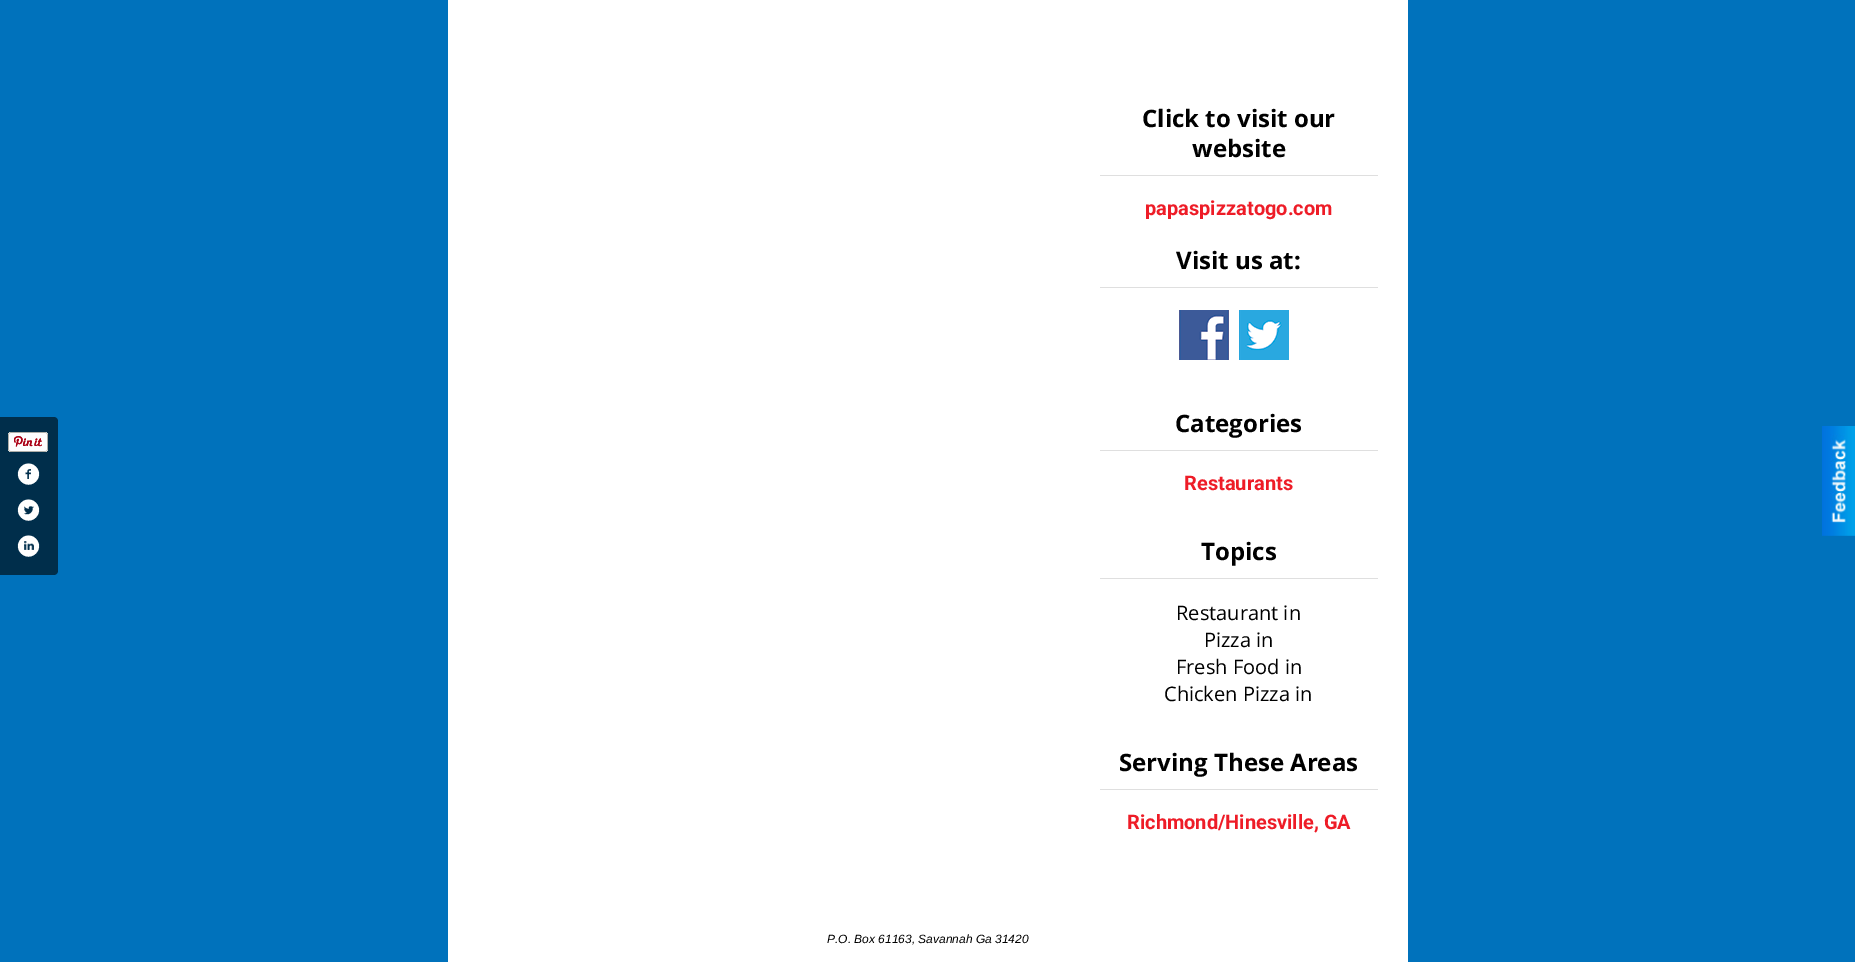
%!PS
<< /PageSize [1855 962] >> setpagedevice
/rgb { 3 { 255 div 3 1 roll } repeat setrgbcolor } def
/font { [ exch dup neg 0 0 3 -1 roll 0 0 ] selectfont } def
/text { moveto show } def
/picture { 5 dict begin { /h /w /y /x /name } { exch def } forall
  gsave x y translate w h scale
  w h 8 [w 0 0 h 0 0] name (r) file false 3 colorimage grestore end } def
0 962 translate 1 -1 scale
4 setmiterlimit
0 114 188 rgb
0 0 1855 962 rectfill
0 46 75 rgb
0 417 moveto 54 0 rlineto 2 0 4 2 4 4 rcurveto 0 150 rlineto 0 2 -2 4 -4 4 rcurveto -54 0 rlineto closepath fill
(img_01.rgb) 8 432 40 20 picture
(img_02.rgb) 17 463 23 22 picture
(img_03.rgb) 17 499 23 22 picture
(img_04.rgb) 17 535 23 22 picture
255 255 255 rgb
448 0 960 962 rectfill
223 223 223 rgb
1100 175 278 1 rectfill
1100 287 278 1 rectfill
(img_05.rgb) 1179 310 50 50 picture
(img_06.rgb) 1239 310 50 50 picture
1100 450 278 1 rectfill
1100 578 278 1 rectfill
1100 789 278 1 rectfill
(img_07.rgb) 1822 426 33 110 picture
/OpenSans-Bold 24 font
0 0 0 rgb
(Click to visit our) 1142 127 text
(website) 1192 157 text
/Roboto-Bold 20 font
238 28 39 rgb
(papaspizzatogo.com) 1145 215 text
/OpenSans-Bold 24 font
0 0 0 rgb
(Visit us at:) 1176 269 text
(Categories) 1175 432 text
/Roboto-Bold 20 font
238 28 39 rgb
(Restaurants) 1184 490 text
/OpenSans-Bold 24 font
0 0 0 rgb
(Topics) 1201 560 text
/OpenSans-Regular 20 font
(Restaurant in) 1176 620 text
(Pizza in) 1204 647 text
(Fresh Food in) 1176 674 text
(Chicken Pizza in) 1164 701 text
/OpenSans-Bold 24 font
(Serving These Areas) 1119 771 text
/Roboto-Bold 20 font
238 28 39 rgb
(Richmond/Hinesville, GA) 1127 829 text
/LiberationSans-Italic 12 font
0 0 0 rgb
(P.O. Box 61163, Savannah Ga 31420) 827 943 text
showpage
